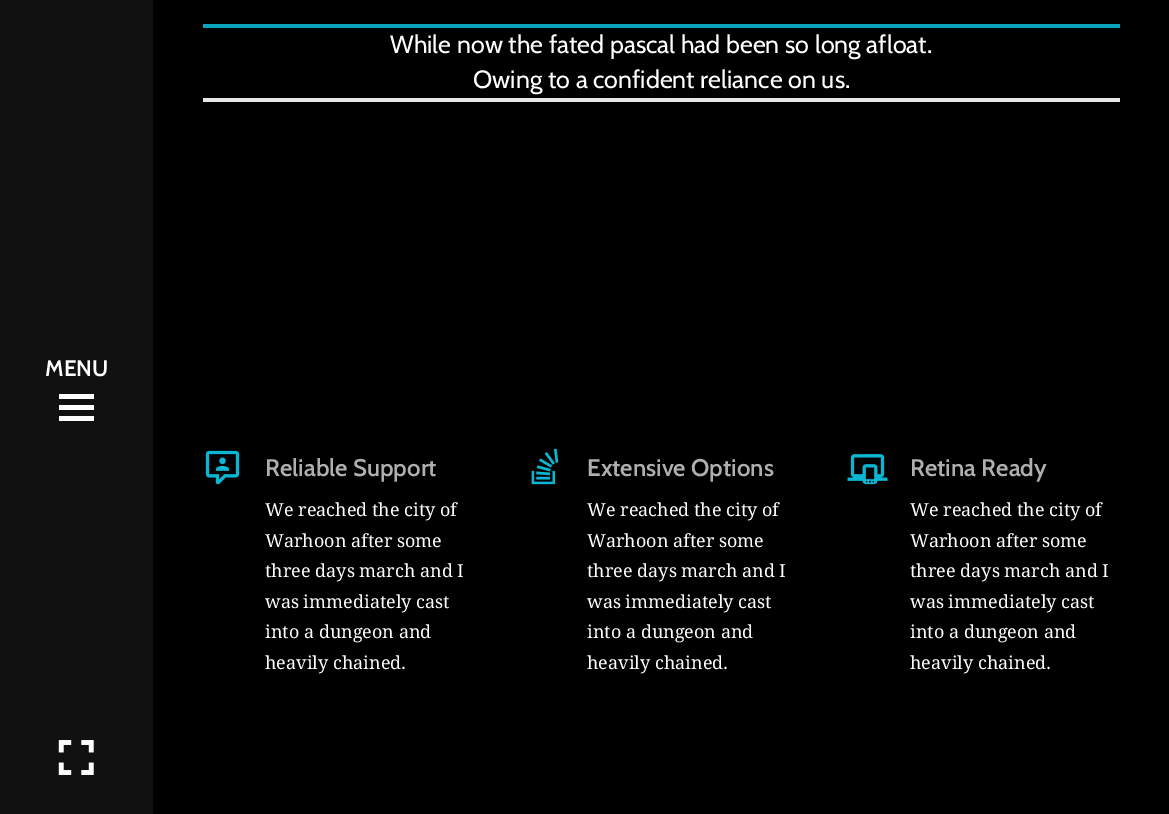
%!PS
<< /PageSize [1169 814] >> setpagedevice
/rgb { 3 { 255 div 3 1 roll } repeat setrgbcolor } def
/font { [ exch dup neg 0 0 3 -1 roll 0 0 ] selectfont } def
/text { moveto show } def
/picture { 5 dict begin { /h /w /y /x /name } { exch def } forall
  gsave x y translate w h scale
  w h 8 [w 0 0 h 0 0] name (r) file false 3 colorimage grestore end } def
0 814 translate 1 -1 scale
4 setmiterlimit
0 0 0 rgb
0 0 1169 814 rectfill
17 17 17 rgb
0 0 153 814 rectfill
255 255 255 rgb
59 394 35 5 rectfill
59 405 35 5 rectfill
59 416 35 5 rectfill
(img_01.rgb) 58 740 36 35 picture
9 164 188 rgb
203 24 917 4 rectfill
230 230 230 rgb
203 98 917 4 rectfill
(img_02.rgb) 205 450 35 35 picture
(img_03.rgb) 531 448 28 37 picture
(img_04.rgb) 847 454 41 31 picture
/Cabin-SemiBold 22.5 font
255 255 255 rgb
(MENU) 45 376 text
/Cabin-Regular 25 font
(While now the fated pascal had been so long afloat.) 390 53 text
(Owing to a confident reliance on us.) 473 88 text
/Cabin-SemiBold 24 font
175 175 175 rgb
(Reliable Support) 265 476 text
/DroidSerif-Regular 18 font
255 255 255 rgb
(We reached the city of) 265 516 text
(Warhoon after some) 265 547 text
(three days march and I) 265 577 text
(was immediately cast) 265 608 text
(into a dungeon and) 265 638 text
(heavily chained.) 265 669 text
/Cabin-SemiBold 24 font
175 175 175 rgb
(Extensive Options) 587 476 text
/DroidSerif-Regular 18 font
255 255 255 rgb
(We reached the city of) 587 516 text
(Warhoon after some) 587 547 text
(three days march and I) 587 577 text
(was immediately cast) 587 608 text
(into a dungeon and) 587 638 text
(heavily chained.) 587 669 text
/Cabin-SemiBold 24 font
175 175 175 rgb
(Retina Ready) 910 476 text
/DroidSerif-Regular 18 font
255 255 255 rgb
(We reached the city of) 910 516 text
(Warhoon after some) 910 547 text
(three days march and I) 910 577 text
(was immediately cast) 910 608 text
(into a dungeon and) 910 638 text
(heavily chained.) 910 669 text
showpage
